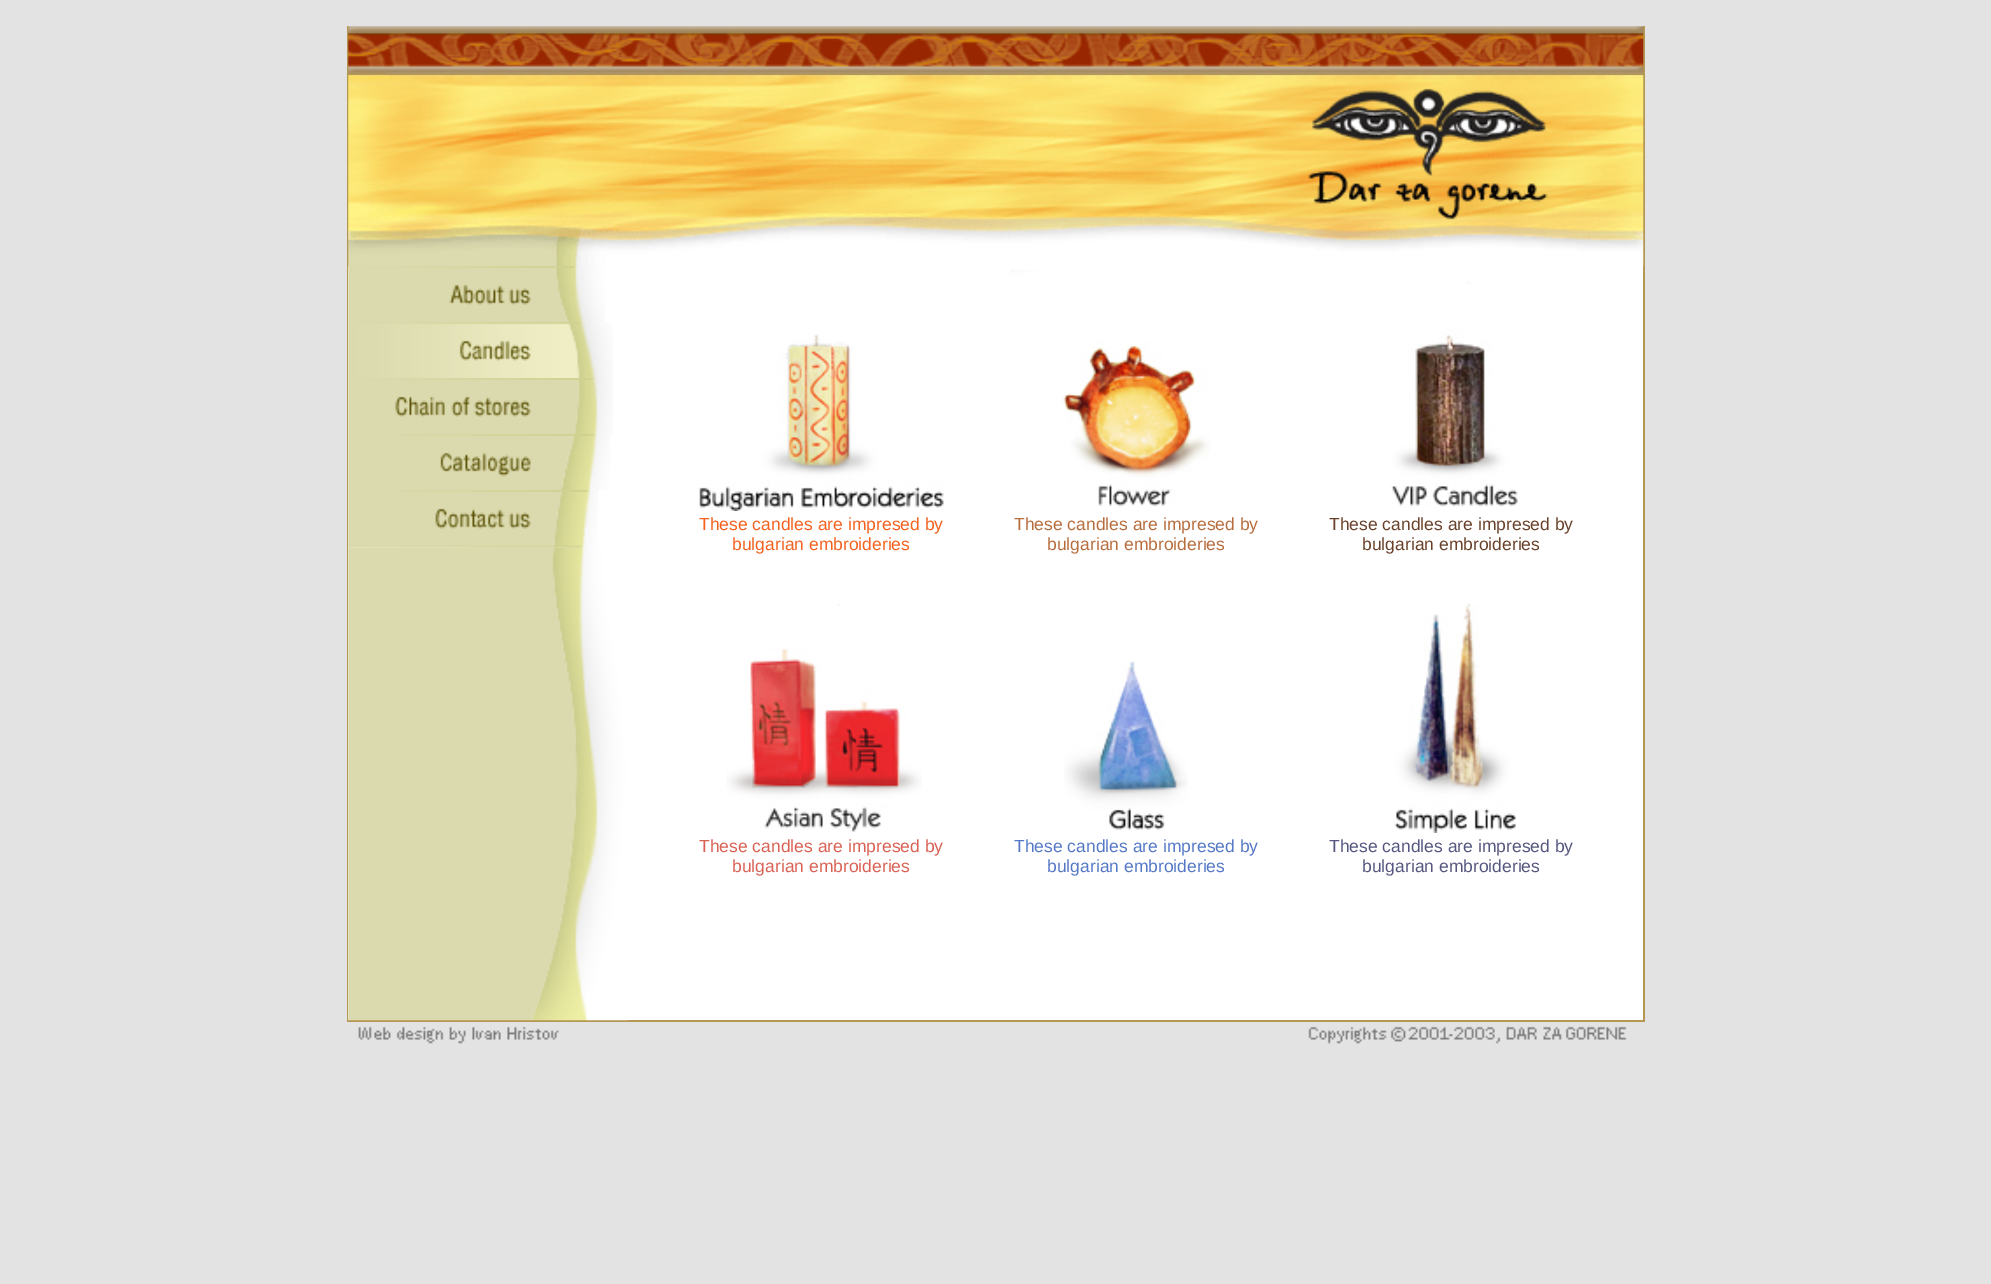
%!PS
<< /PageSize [1991 1284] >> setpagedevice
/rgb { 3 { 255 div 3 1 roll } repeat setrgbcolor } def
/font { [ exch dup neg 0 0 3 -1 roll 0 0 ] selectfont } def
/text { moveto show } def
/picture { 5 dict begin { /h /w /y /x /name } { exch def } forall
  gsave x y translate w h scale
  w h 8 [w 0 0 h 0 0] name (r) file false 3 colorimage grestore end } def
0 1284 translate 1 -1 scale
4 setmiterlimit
227 227 227 rgb
0 0 1991 1284 rectfill
179 151 82 rgb
347 26 2 994 rectfill
1643 26 2 994 rectfill
(img_01.rgb) 348 26 1296 50 picture
(img_02.rgb) 348 75 849 191 picture
(img_03.rgb) 1197 75 447 191 picture
255 255 255 rgb
348 266 1295 754 rectfill
(img_04.rgb) 348 266 257 56 picture
(img_05.rgb) 348 322 265 56 picture
(img_06.rgb) 348 378 265 56 picture
(img_07.rgb) 348 434 262 56 picture
(img_08.rgb) 348 490 250 58 picture
179 151 82 rgb
347 1020 1298 2 rectfill
(img_09.rgb) 348 547 281 474 picture
(img_10.rgb) 699 334 245 177 picture
(img_11.rgb) 1010 270 201 237 picture
(img_12.rgb) 1391 281 127 226 picture
(img_13.rgb) 726 603 196 229 picture
(img_14.rgb) 1064 661 124 169 picture
(img_15.rgb) 1394 603 122 230 picture
(img_16.rgb) 358 1026 201 18 picture
(img_17.rgb) 1308 1026 319 18 picture
/LiberationSans-Regular 17.5 font
243 98 30 rgb
(These candles are impresed by) 699 530 text
(bulgarian embroideries) 732 550 text
184 109 61 rgb
(These candles are impresed by) 1014 530 text
(bulgarian embroideries) 1047 550 text
105 64 41 rgb
(These candles are impresed by) 1329 530 text
(bulgarian embroideries) 1362 550 text
217 98 84 rgb
(These candles are impresed by) 699 852 text
(bulgarian embroideries) 732 872 text
85 121 198 rgb
(These candles are impresed by) 1014 852 text
(bulgarian embroideries) 1047 872 text
85 87 128 rgb
(These candles are impresed by) 1329 852 text
(bulgarian embroideries) 1362 872 text
showpage
